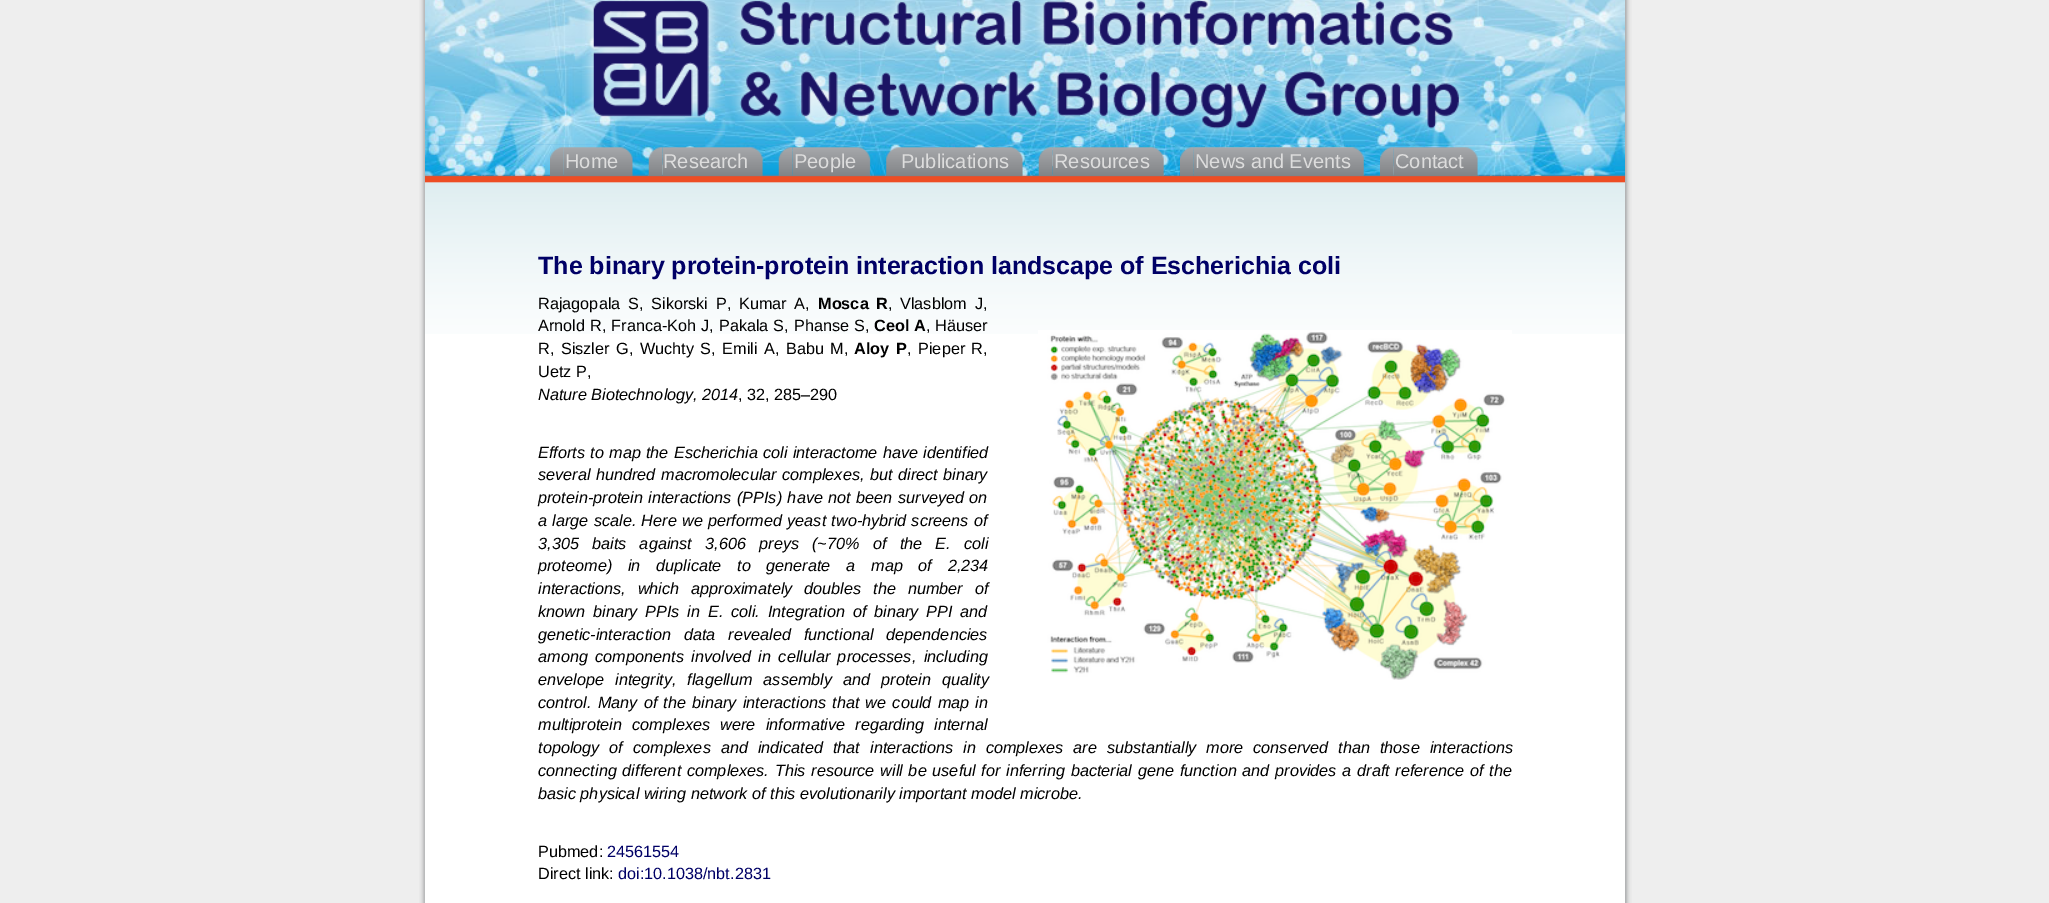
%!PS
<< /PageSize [2049 903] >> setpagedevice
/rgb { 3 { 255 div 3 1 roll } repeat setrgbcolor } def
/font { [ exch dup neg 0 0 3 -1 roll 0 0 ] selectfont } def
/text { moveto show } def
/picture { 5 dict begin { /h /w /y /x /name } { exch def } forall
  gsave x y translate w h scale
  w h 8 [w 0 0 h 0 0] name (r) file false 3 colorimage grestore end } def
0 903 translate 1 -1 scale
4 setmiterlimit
238 238 238 rgb
0 0 2049 903 rectfill
(img_01.rgb) 419 0 1213 903 picture
255 255 255 rgb
425 334 1200 569 rectfill
(img_02.rgb) 425 144 1200 190 picture
(img_03.rgb) 425 0 1200 145 picture
(img_04.rgb) 582 0 887 139 picture
(img_05.rgb) 425 144 1200 32 picture
(img_06.rgb) 550 147 14 29 picture
(img_07.rgb) 563 147 70 29 picture
(img_08.rgb) 648 147 15 29 picture
(img_09.rgb) 662 147 101 29 picture
(img_10.rgb) 778 147 15 29 picture
(img_11.rgb) 792 147 79 29 picture
(img_12.rgb) 886 147 14 29 picture
(img_13.rgb) 900 147 123 29 picture
(img_14.rgb) 1038 147 15 29 picture
(img_15.rgb) 1052 147 112 29 picture
(img_16.rgb) 1180 147 14 29 picture
(img_17.rgb) 1193 147 171 29 picture
(img_18.rgb) 1380 147 14 29 picture
(img_19.rgb) 1393 147 85 29 picture
(img_20.rgb) 1038 330 474 350 picture
/LiberationSans-Regular 20 font
221 221 221 rgb
(Home) 565 168 text
(Research) 663 168 text
(People) 794 168 text
(Publications) 901 168 text
(Resources) 1054 168 text
(News and Events) 1195 168 text
(Contact) 1395 168 text
/LiberationSans-Bold 25 font
0 0 102 rgb
(The binary protein-protein interaction landscape of Escherichia coli) 538 274 text
/LiberationSans-Regular 16.25 font
0 0 0 rgb
538 309 moveto 3.25 0 32 (Rajagopala S, Sikorski P, Kumar A,) widthshow
/LiberationSans-Bold 16.25 font
818 309 moveto 3.4 0 32 (Mosca R) widthshow
/LiberationSans-Regular 16.25 font
(,) 888 309 text
900 309 moveto 3.4 0 32 (Vlasblom J,) widthshow
538 331 moveto 0.5 0 32 (Arnold R, Franca-Koh J, Pakala S, Phanse S,) widthshow
/LiberationSans-Bold 16.25 font
(Ceol A) 874 331 text
/LiberationSans-Regular 16.25 font
(, Häuser) 926 331 text
538 354 moveto 2 0 32 (R, Siszler G, Wuchty S, Emili A, Babu M,) widthshow
/LiberationSans-Bold 16.25 font
854 354 moveto 2 0 32 (Aloy P) widthshow
/LiberationSans-Regular 16.25 font
907 354 moveto 2 0 32 (, Pieper R,) widthshow
(Uetz P,) 538 377 text
/LiberationSans-Italic 16.25 font
(Nature Biotechnology, 2014) 538 400 text
/LiberationSans-Regular 16.25 font
(, 32, 285–290) 738 400 text
/LiberationSans-Italic 16.25 font
538 458 moveto 0.75 0 32 (Efforts to map the Escherichia coli interactome have identified) widthshow
538 480 moveto 1 0 32 (several hundred macromolecular complexes, but direct binary) widthshow
538 503 moveto 1 0 32 (protein-protein interactions \(PPIs\) have not been surveyed on) widthshow
538 526 moveto 0.75 0 32 (a large scale. Here we performed yeast two-hybrid screens of) widthshow
538 549 moveto 8.75 0 32 (3,305 baits against 3,606 preys \(~70% of the E. coli) widthshow
538 571 moveto 11.25 0 32 (proteome\) in duplicate to generate a map of 2,234) widthshow
538 594 moveto 7.5 0 32 (interactions, which approximately doubles the number of) widthshow
538 617 moveto 3.4 0 32 (known binary PPIs in E. coli. Integration of binary PPI and) widthshow
538 640 moveto 8.5 0 32 (genetic-interaction data revealed functional dependencies) widthshow
538 662 moveto 3 0 32 (among components involved in cellular processes, including) widthshow
538 685 moveto 6.5 0 32 (envelope integrity, flagellum assembly and protein quality) widthshow
538 708 moveto 1.75 0 32 (control. Many of the binary interactions that we could map in) widthshow
538 730 moveto 5.75 0 32 (multiprotein complexes were informative regarding internal) widthshow
538 753 moveto 5.5 0 32 (topology of complexes and indicated that interactions in complexes are substantially more conserved than those interactions) widthshow
538 776 moveto 1.25 0 32 (connecting different complexes. This resource will be useful for inferring bacterial gene function and provides a draft reference of the) widthshow
(basic physical wiring network of this evolutionarily important model microbe.) 538 799 text
/LiberationSans-Regular 16.25 font
(Pubmed:) 538 857 text
0 0 102 rgb
(24561554) 607 857 text
0 0 0 rgb
(Direct link:) 538 879 text
0 0 102 rgb
(doi:10.1038/nbt.2831) 618 879 text
showpage
